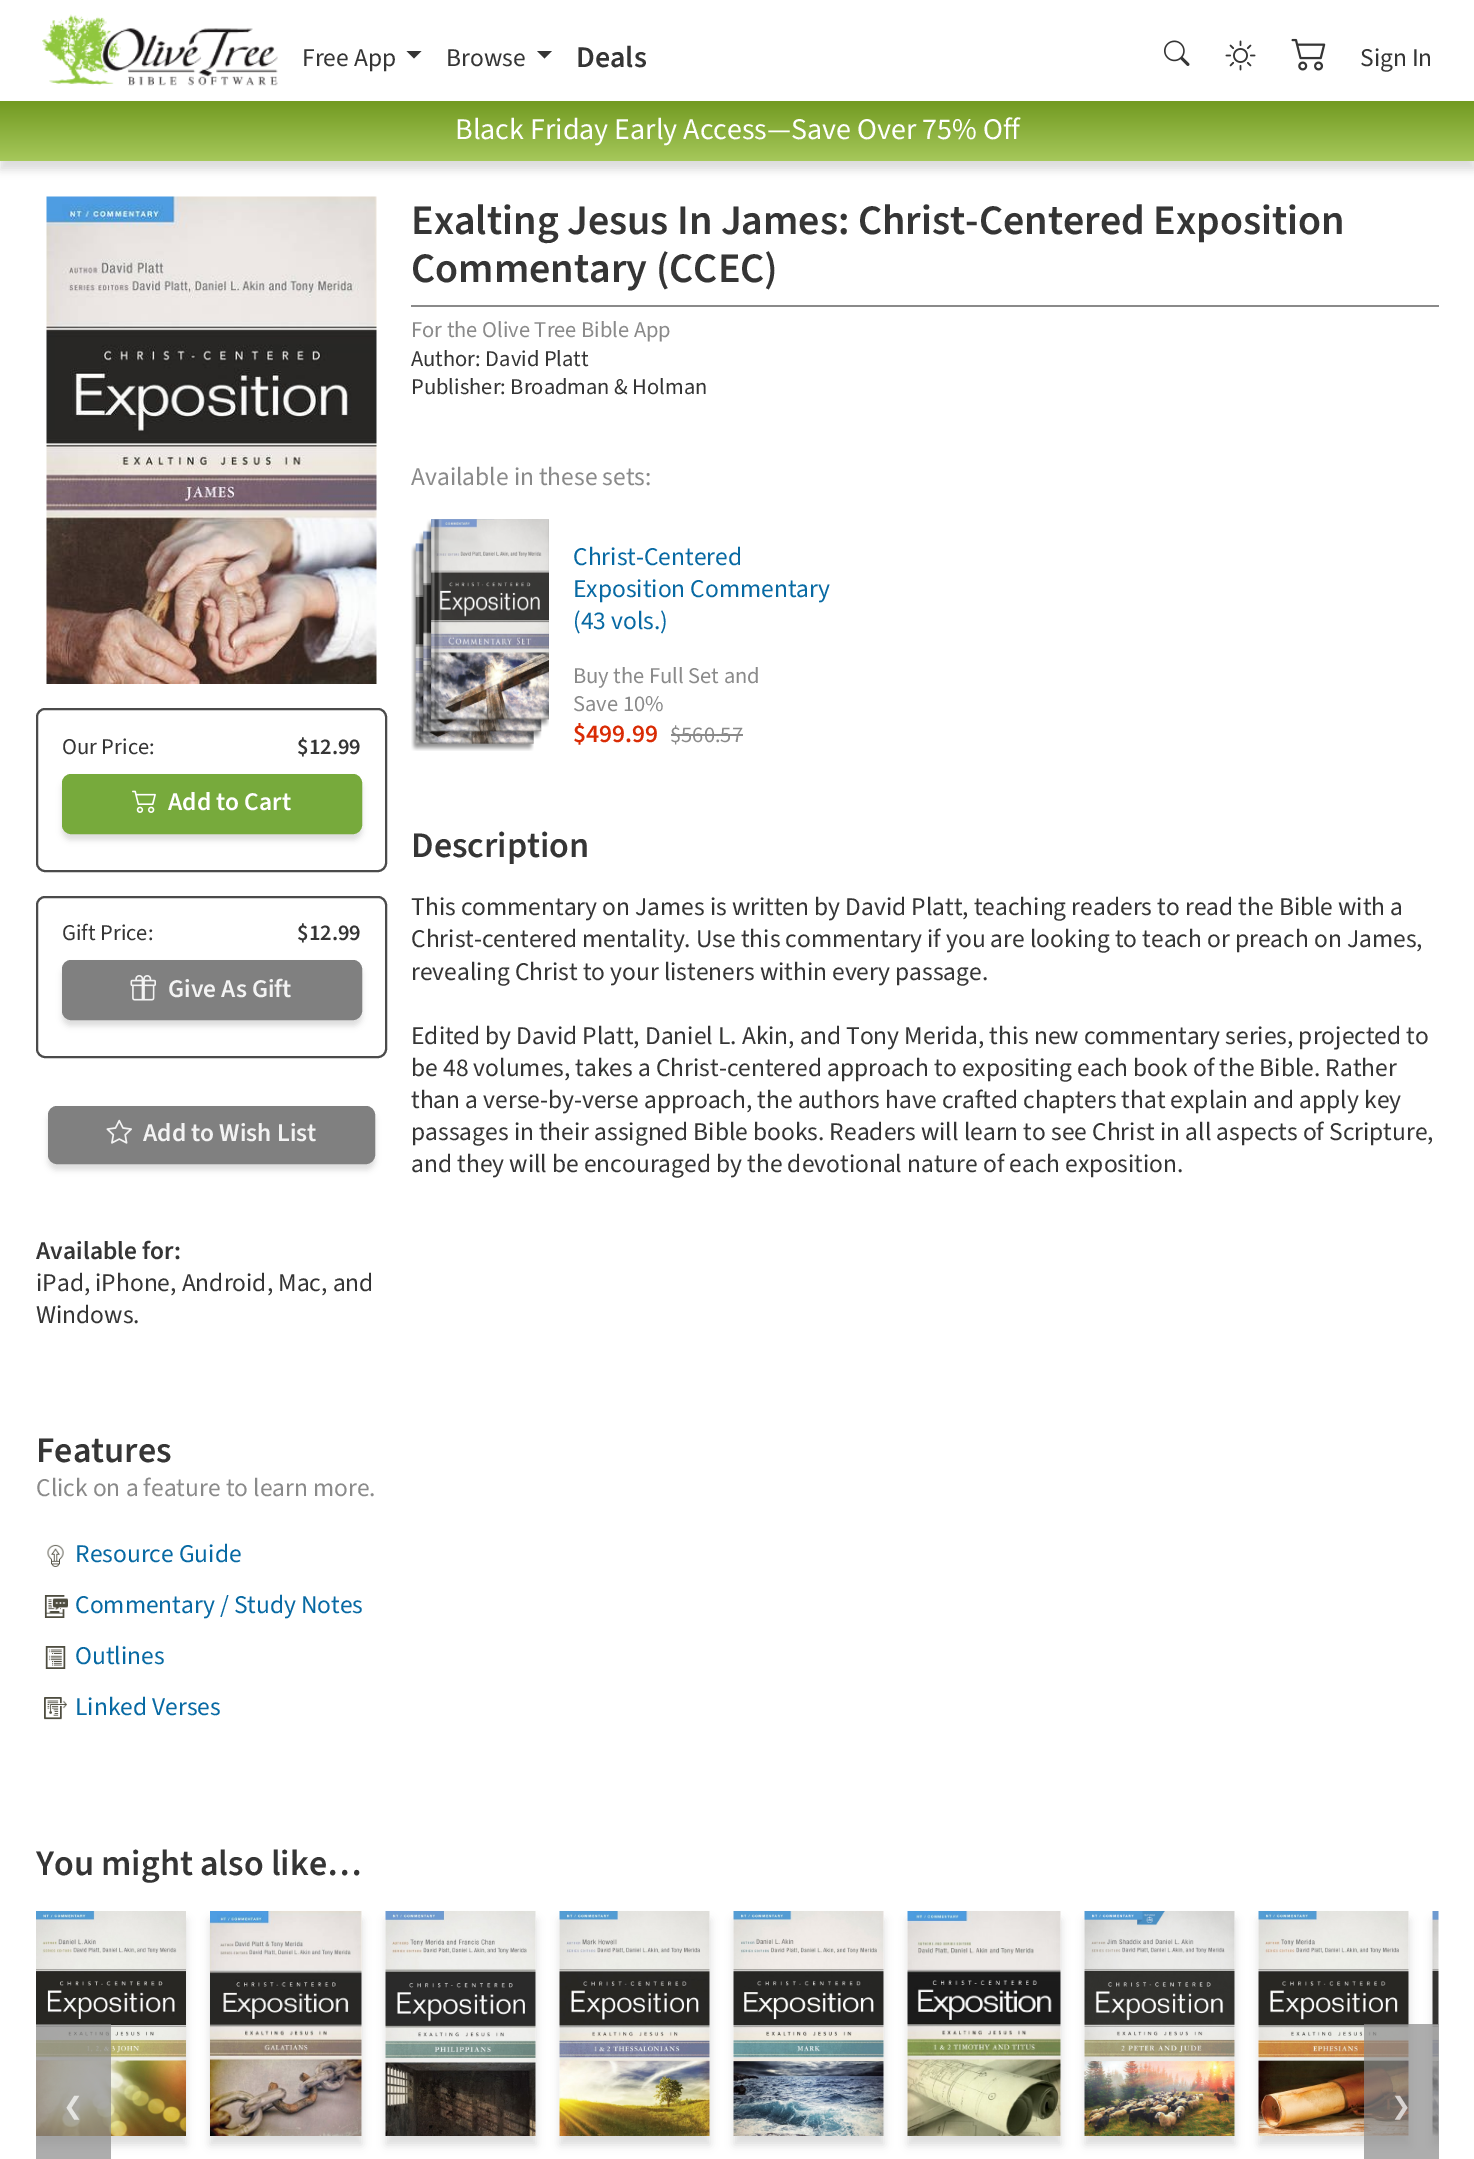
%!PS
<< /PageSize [1474 2159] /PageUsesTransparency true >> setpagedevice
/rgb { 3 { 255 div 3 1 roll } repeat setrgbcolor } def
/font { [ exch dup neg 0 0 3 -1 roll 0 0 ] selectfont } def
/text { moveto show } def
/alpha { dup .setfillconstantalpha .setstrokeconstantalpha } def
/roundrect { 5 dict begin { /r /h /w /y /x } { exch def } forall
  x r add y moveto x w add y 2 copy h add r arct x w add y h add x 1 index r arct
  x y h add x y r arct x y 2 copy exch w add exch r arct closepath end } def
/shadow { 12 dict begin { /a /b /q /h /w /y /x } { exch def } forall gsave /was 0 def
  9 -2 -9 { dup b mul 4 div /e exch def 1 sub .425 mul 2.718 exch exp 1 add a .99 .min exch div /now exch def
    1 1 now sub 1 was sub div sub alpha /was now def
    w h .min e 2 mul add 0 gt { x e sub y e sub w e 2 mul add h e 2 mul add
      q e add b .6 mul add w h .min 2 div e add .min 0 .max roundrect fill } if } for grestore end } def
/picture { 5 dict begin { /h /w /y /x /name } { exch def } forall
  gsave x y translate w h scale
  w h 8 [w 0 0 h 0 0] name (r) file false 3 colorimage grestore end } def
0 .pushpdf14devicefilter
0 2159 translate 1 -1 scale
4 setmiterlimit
255 255 255 rgb
0 0 1474 2159 rectfill
(img_01.rgb) 42 14 236 72 picture
53 53 53 rgb
406.5 51 moveto 15 0 rlineto -7.5 7.5 rlineto closepath fill
537 51 moveto 15 0 rlineto -7.5 7.5 rlineto closepath fill
(img_02.rgb) 1164 40 26 26 picture
(img_03.rgb) 1225 40 31 31 picture
(img_04.rgb) 1291 38 35 33 picture
0 0 0 rgb
0 110 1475 60 0 4.5 0.13 shadow
gsave 0 101 moveto 1474 0 rlineto 0 60 rlineto -1474 0 rlineto closepath clip newpath
<< /ShadingType 2 /ColorSpace /DeviceRGB /Coords [737 100 737 161] /Extend [true true] /Function << /FunctionType 2 /Domain [0 1] /C0 [0.443 0.6 0.125] /C1 [0.651 0.784 0.357] /N 1 >> >> shfill grestore
(img_05.rgb) 46 196 331 488 picture
75 75 75 rgb
2 setlinewidth
37 709 349 162 8 roundrect stroke
0 0 0 rgb
62 780 300 60 9 3 0.13 shadow
119 170 60 rgb
63 775 298 58 8 roundrect gsave fill grestore
stroke
(img_06.rgb) 132 790 24 23 picture
75 75 75 rgb
37 897 349 160 8 roundrect stroke
0 0 0 rgb
62 966 300 60 9 3 0.13 shadow
128 128 128 rgb
63 961 298 58 8 roundrect gsave fill grestore
stroke
(img_07.rgb) 130 975 26 26 picture
0 0 0 rgb
48 1112 327 58 9 3 0.13 shadow
128 128 128 rgb
49 1107 325 56 8 roundrect gsave fill grestore
stroke
(img_08.rgb) 106 1119 26 25 picture
(img_09.rgb) 47 1544 17 23 picture
(img_10.rgb) 44 1595 24 23 picture
(img_11.rgb) 45 1646 21 23 picture
(img_12.rgb) 44 1697 23 23 picture
138 138 138 rgb
411 305 1028 2 rectfill
(img_13.rgb) 411 519 138 232 picture
671 734 72 2 rectfill
gsave
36 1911 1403 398 rectclip
0 0 0 rgb
36 1920 150 225 0 4.5 0.13 shadow
grestore
(img_14.rgb) 36 1911 150 225 picture
0 0 0 rgb
210 1920 152 225 0 4.5 0.13 shadow
(img_15.rgb) 210 1911 152 225 picture
386 1920 150 225 0 4.5 0.13 shadow
(img_16.rgb) 385 1911 151 225 picture
560 1920 150 225 0 4.5 0.13 shadow
(img_17.rgb) 559 1911 151 225 picture
734 1920 150 225 0 4.5 0.13 shadow
(img_18.rgb) 733 1911 151 225 picture
908 1920 153 225 0 4.5 0.13 shadow
(img_19.rgb) 907 1911 154 225 picture
1085 1920 150 225 0 4.5 0.13 shadow
(img_20.rgb) 1084 1911 151 225 picture
1259 1920 150 225 0 4.5 0.13 shadow
(img_21.rgb) 1258 1911 151 225 picture
gsave
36 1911 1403 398 rectclip
1433 1920 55 225 0 4.5 0.13 shadow
grestore
(img_22.rgb) 1432 1911 7 225 picture
0.7 alpha
138 138 138 rgb
36 2024 75 135 rectfill
1364 2024 75 135 rectfill
/SourceSans3-Regular 25.5 font
1 alpha
53 53 53 rgb
(Free App) 302 66 text
(Browse) 446 66 text
/SourceSans3-SemiBold 30 font
(Deals) 576 67 text
/SourceSans3-Regular 25.5 font
(Sign In) 1360 66 text
/SourceSans3-Regular 30 font
255 255 255 rgb
(Black Friday Early Access—Save Over 75% Off) 455 139 text
/SourceSans3-Regular 22.5 font
53 53 53 rgb
(Our Price:) 62 754 text
/SourceSans3-SemiBold 22.5 font
($12.99) 297 754 text
/SourceSans3-SemiBold 25.5 font
255 255 255 rgb
(Add to Cart) 168 810 text
/SourceSans3-Regular 22.5 font
53 53 53 rgb
(Gift Price:) 62 940 text
/SourceSans3-SemiBold 22.5 font
($12.99) 297 940 text
/SourceSans3-SemiBold 25.5 font
243 243 243 rgb
(Give As Gift) 168 997 text
(Add to Wish List) 143 1141 text
53 53 53 rgb
(Available for:) 36 1259 text
/SourceSans3-Regular 25.5 font
(iPad, iPhone, Android, Mac, and) 36 1291 text
(Windows.) 36 1323 text
/SourceSans3-SemiBold 36 font
(Features) 36 1462 text
/SourceSans3-Regular 25.5 font
138 138 138 rgb
(Click on a feature to learn more.) 36 1496 text
7 105 163 rgb
(Resource Guide) 75 1562 text
(Commentary / Study Notes) 75 1613 text
(Outlines) 75 1664 text
(Linked Verses) 75 1715 text
/SourceSans3-SemiBold 42 font
53 53 53 rgb
(Exalting Jesus In James: Christ-Centered Exposition) 411 234 text
(Commentary \(CCEC\)) 411 282 text
/SourceSans3-Regular 22.5 font
138 138 138 rgb
(For the Olive Tree Bible App) 411 337 text
53 53 53 rgb
(Author: David Platt) 411 366 text
(Publisher: Broadman & Holman) 411 394 text
/SourceSans3-Regular 25.5 font
138 138 138 rgb
(Available in these sets:) 411 485 text
7 105 163 rgb
(Christ-Centered) 573 565 text
(Exposition Commentary) 573 597 text
(\(43 vols.\)) 573 629 text
/SourceSans3-Regular 22.5 font
138 138 138 rgb
(Buy the Full Set and) 573 683 text
(Save 10%) 573 711 text
/SourceSans3-SemiBold 25.5 font
217 43 4 rgb
($499.99) 573 742 text
/SourceSans3-Regular 22.5 font
138 138 138 rgb
($560.57) 670 742 text
/SourceSans3-SemiBold 36 font
53 53 53 rgb
(Description) 411 857 text
/SourceSans3-Regular 25.5 font
(This commentary on James is written by David Platt, teaching readers to read the Bible with a) 411 915 text
(Christ-centered mentality. Use this commentary if you are looking to teach or preach on James,) 411 947 text
(revealing Christ to your listeners within every passage.) 411 980 text
(Edited by David Platt, Daniel L. Akin, and Tony Merida, this new commentary series, projected to) 411 1044 text
(be 48 volumes, takes a Christ-centered approach to expositing each book of the Bible. Rather) 411 1076 text
(than a verse-by-verse approach, the authors have crafted chapters that explain and apply key) 411 1108 text
(passages in their assigned Bible books. Readers will learn to see Christ in all aspects of Scripture,) 411 1140 text
(and they will be encouraged by the devotional nature of each exposition.) 411 1172 text
/SourceSans3-SemiBold 36 font
(You might also like…) 36 1875 text
/DejaVuSans-Regular 24 font
229 229 226 rgb
(❮) 63 2114 text
216 211 209 rgb
(❯) 1391 2114 text
.poppdf14devicefilter showpage
